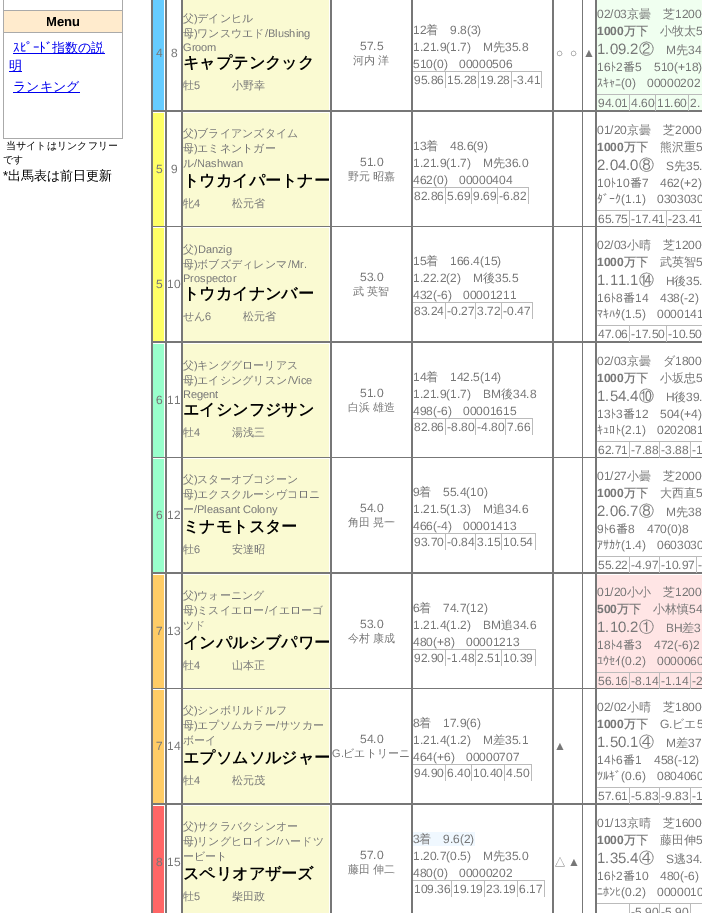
%!PS
<< /PageSize [702 913] >> setpagedevice
/rgb { 3 { 255 div 3 1 roll } repeat setrgbcolor } def
/font { [ exch dup neg 0 0 3 -1 roll 0 0 ] selectfont } def
/text { moveto show } def
0 913 translate 1 -1 scale
4 setmiterlimit
255 255 255 rgb
0 0 702 913 rectfill
170 170 170 rgb
3 0 120 139 rectfill
255 255 255 rgb
4 0 118 10 rectfill
255 235 205 rgb
4 11 118 21 rectfill
255 255 255 rgb
4 33 118 105 rectfill
0 0 238 rgb
13 53 92 1 rectfill
9 71 13 1 rectfill
13 92 67 1 rectfill
119 119 119 rgb
152 226 550 1 rectfill
152 457 550 1 rectfill
152 688 550 1 rectfill
151 0 2 913 rectfill
102 204 255 rgb
153 0 11 110 rectfill
250 250 210 rgb
183 0 146 110 rectfill
187 187 187 rgb
413 71 129 1 rectfill
445 71 1 17 rectfill
478 71 1 17 rectfill
511 71 1 17 rectfill
541 71 1 17 rectfill
240 255 240 rgb
597 0 105 110 rectfill
187 187 187 rgb
597 94 105 1 rectfill
119 119 119 rgb
582 804 1 109 rectfill
582 573 1 232 rectfill
582 342 1 232 rectfill
582 0 1 343 rectfill
151 110 551 2 rectfill
187 187 187 rgb
629 94 1 17 rectfill
655 94 1 17 rectfill
688 94 1 17 rectfill
255 255 102 rgb
153 113 11 113 rectfill
119 119 119 rgb
151 341 551 2 rectfill
151 572 551 2 rectfill
151 803 551 2 rectfill
165 688 2 225 rectfill
165 457 2 233 rectfill
165 226 2 233 rectfill
165 0 2 228 rectfill
181 688 2 225 rectfill
181 457 2 233 rectfill
181 226 2 233 rectfill
181 0 2 228 rectfill
250 250 210 rgb
183 113 146 113 rectfill
119 119 119 rgb
330 688 2 225 rectfill
330 457 2 233 rectfill
330 226 2 233 rectfill
330 0 2 228 rectfill
411 688 2 225 rectfill
411 457 2 233 rectfill
411 226 2 233 rectfill
411 0 2 228 rectfill
552 688 2 225 rectfill
552 457 2 233 rectfill
552 226 2 233 rectfill
552 0 2 228 rectfill
187 187 187 rgb
413 187 116 1 rectfill
445 187 1 17 rectfill
471 187 1 17 rectfill
497 187 1 17 rectfill
528 187 1 17 rectfill
119 119 119 rgb
595 688 2 225 rectfill
595 457 2 233 rectfill
595 226 2 233 rectfill
595 0 2 228 rectfill
187 187 187 rgb
597 210 105 1 rectfill
629 210 1 17 rectfill
666 210 1 17 rectfill
255 255 102 rgb
153 228 11 113 rectfill
250 250 210 rgb
183 228 146 113 rectfill
187 187 187 rgb
413 302 120 1 rectfill
445 302 1 17 rectfill
475 302 1 17 rectfill
501 302 1 17 rectfill
532 302 1 17 rectfill
597 325 105 1 rectfill
629 325 1 17 rectfill
666 325 1 17 rectfill
153 255 204 rgb
153 344 11 113 rectfill
250 250 210 rgb
183 344 146 113 rectfill
187 187 187 rgb
413 418 120 1 rectfill
445 418 1 17 rectfill
475 418 1 17 rectfill
505 418 1 17 rectfill
532 418 1 17 rectfill
597 441 105 1 rectfill
629 441 1 17 rectfill
659 441 1 17 rectfill
690 441 1 17 rectfill
153 255 204 rgb
153 459 11 113 rectfill
250 250 210 rgb
183 459 146 113 rectfill
187 187 187 rgb
413 533 123 1 rectfill
445 533 1 17 rectfill
475 533 1 17 rectfill
501 533 1 17 rectfill
535 533 1 17 rectfill
597 556 105 1 rectfill
629 556 1 17 rectfill
659 556 1 17 rectfill
696 556 1 17 rectfill
255 204 102 rgb
153 575 11 113 rectfill
250 250 210 rgb
183 575 146 113 rectfill
187 187 187 rgb
413 649 123 1 rectfill
445 649 1 17 rectfill
475 649 1 17 rectfill
501 649 1 17 rectfill
535 649 1 17 rectfill
255 229 229 rgb
597 575 105 113 rectfill
187 187 187 rgb
597 672 105 1 rectfill
629 672 1 17 rectfill
659 672 1 17 rectfill
690 672 1 17 rectfill
255 204 102 rgb
153 690 11 113 rectfill
250 250 210 rgb
183 690 146 113 rectfill
187 187 187 rgb
413 764 119 1 rectfill
445 764 1 17 rectfill
471 764 1 17 rectfill
504 764 1 17 rectfill
531 764 1 17 rectfill
597 787 105 1 rectfill
629 787 1 17 rectfill
659 787 1 17 rectfill
690 787 1 17 rectfill
255 102 102 rgb
153 806 11 107 rectfill
250 250 210 rgb
183 806 146 107 rectfill
240 248 255 rgb
413 832 62 14 rectfill
187 187 187 rgb
413 880 132 1 rectfill
451 880 1 17 rectfill
484 880 1 17 rectfill
517 880 1 17 rectfill
544 880 1 17 rectfill
597 903 105 1 rectfill
629 903 1 10 rectfill
659 903 1 10 rectfill
690 903 1 10 rectfill
/LiberationSans-Bold 13 font
0 0 0 rgb
(Menu) 46 26 text
/IPAPGothic-Regular 13 font
0 0 238 rgb
(ｽﾋﾟｰﾄﾞ) 13 52 text
/WenQuanYiZenHei-Medium 13 font
(指数の説) 52 52 text
(明) 9 70 text
(ランキング) 13 91 text
/WenQuanYiZenHei-Medium 10 font
0 0 0 rgb
(当サイトはリンクフリー) 6 149 text
(です) 3 163 text
/LiberationSans-Regular 13 font
(*) 3 180 text
/WenQuanYiZenHei-Medium 13 font
(出馬表は前日更新) 8 180 text
/LiberationSans-Regular 12 font
119 119 119 rgb
(4) 156 57 text
(8) 171 57 text
/WenQuanYiZenHei-Medium 11 font
(父) 183 22 text
/LiberationSans-Regular 11 font
(\)) 194 22 text
/WenQuanYiZenHei-Medium 11 font
(デインヒル) 197 22 text
(母) 183 37 text
/LiberationSans-Regular 11 font
(\)) 194 37 text
/WenQuanYiZenHei-Medium 11 font
(ワンスウエド) 197 37 text
/LiberationSans-Regular 11 font
(/Blushing) 265 37 text
(Groom) 183 51 text
/WenQuanYiZenHei-Bold 16 font
0 0 0 rgb
(キャプテンクック) 183 68 text
/WenQuanYiZenHei-Medium 11 font
119 119 119 rgb
(牡) 183 89 text
/LiberationSans-Regular 11 font
(5) 194 89 text
/WenQuanYiZenHei-Medium 11 font
(小野幸) 232 89 text
/LiberationSans-Regular 12 font
(57.5) 360 50 text
/WenQuanYiZenHei-Medium 11 font
(河内 洋) 353 64 text
/LiberationSans-Regular 12 font
(12) 413 34 text
/WenQuanYiZenHei-Medium 12 font
(着) 426 34 text
/LiberationSans-Regular 12 font
(9.8\(3\)) 450 34 text
(1.21.9\(1.7\)) 413 51 text
(M) 483 51 text
/WenQuanYiZenHei-Medium 12 font
(先) 493 51 text
/LiberationSans-Regular 12 font
(35.8) 505 51 text
(510\(0\)) 413 68 text
(00000506) 459 68 text
(95.86) 414 84 text
(15.28) 447 84 text
(19.28) 480 84 text
(-3.41) 513 84 text
(○) 556 57 text
(○) 570 57 text
(▲) 583 57 text
(02/03) 597 18 text
/WenQuanYiZenHei-Medium 12 font
(京曇　芝) 627 18 text
/LiberationSans-Regular 12 font
(1200) 675 18 text
/LiberationSans-Bold 12 font
(1000) 597 35 text
/WenQuanYiZenHei-Bold 12 font
(万下) 624 35 text
/WenQuanYiZenHei-Medium 12 font
(小牧太) 660 35 text
/LiberationSans-Regular 12 font
(5) 696 35 text
/LiberationSans-Regular 15 font
(1.09.2) 597 54 text
/WenQuanYiZenHei-Medium 15 font
(②) 639 54 text
/LiberationSans-Regular 12 font
(M) 666 54 text
/WenQuanYiZenHei-Medium 12 font
(先) 676 54 text
/LiberationSans-Regular 12 font
(34) 688 54 text
(16) 597 71 text
/IPAPGothic-Regular 12 font
(ﾄ) 610 71 text
/LiberationSans-Regular 12 font
(2) 616 71 text
/IPAPGothic-Regular 12 font
(番) 623 71 text
/LiberationSans-Regular 12 font
(5) 635 71 text
(510\(+18\)) 654 71 text
/IPAPGothic-Regular 12 font
(ｽｷｬﾆ) 597 87 text
/LiberationSans-Regular 12 font
(\(0\)) 621 87 text
(00000202) 647 87 text
(94.01) 598 107 text
(4.60) 631 107 text
(11.60) 657 107 text
(2.) 690 107 text
(5) 156 173 text
(9) 171 173 text
/WenQuanYiZenHei-Medium 11 font
(父) 183 137 text
/LiberationSans-Regular 11 font
(\)) 194 137 text
/WenQuanYiZenHei-Medium 11 font
(ブライアンズタイム) 197 137 text
(母) 183 152 text
/LiberationSans-Regular 11 font
(\)) 194 152 text
/WenQuanYiZenHei-Medium 11 font
(エミネントガー) 197 152 text
(ル) 183 167 text
/LiberationSans-Regular 11 font
(/Nashwan) 194 167 text
/WenQuanYiZenHei-Bold 16 font
0 0 0 rgb
(トウカイパートナー) 183 186 text
/WenQuanYiZenHei-Medium 11 font
119 119 119 rgb
(牝) 183 207 text
/LiberationSans-Regular 11 font
(4) 194 207 text
/WenQuanYiZenHei-Medium 11 font
(松元省) 232 207 text
/LiberationSans-Regular 12 font
(51.0) 360 166 text
/WenQuanYiZenHei-Medium 11 font
(野元 昭嘉) 348 180 text
/LiberationSans-Regular 12 font
(13) 413 150 text
/WenQuanYiZenHei-Medium 12 font
(着) 426 150 text
/LiberationSans-Regular 12 font
(48.6\(9\)) 450 150 text
(1.21.9\(1.7\)) 413 167 text
(M) 483 167 text
/WenQuanYiZenHei-Medium 12 font
(先) 493 167 text
/LiberationSans-Regular 12 font
(36.0) 505 167 text
(462\(0\)) 413 184 text
(00000404) 459 184 text
(82.86) 414 200 text
(5.69) 447 200 text
(9.69) 473 200 text
(-6.82) 499 200 text
(01/20) 597 134 text
/WenQuanYiZenHei-Medium 12 font
(京曇　芝) 627 134 text
/LiberationSans-Regular 12 font
(2000) 675 134 text
/LiberationSans-Bold 12 font
(1000) 597 151 text
/WenQuanYiZenHei-Bold 12 font
(万下) 624 151 text
/WenQuanYiZenHei-Medium 12 font
(熊沢重) 660 151 text
/LiberationSans-Regular 12 font
(5) 696 151 text
/LiberationSans-Regular 15 font
(2.04.0) 597 170 text
/WenQuanYiZenHei-Medium 15 font
(⑧) 639 170 text
/LiberationSans-Regular 12 font
(S) 666 170 text
/WenQuanYiZenHei-Medium 12 font
(先) 674 170 text
/LiberationSans-Regular 12 font
(35.) 686 170 text
(10) 597 187 text
/IPAPGothic-Regular 12 font
(ﾄ) 610 187 text
/LiberationSans-Regular 12 font
(10) 616 187 text
/IPAPGothic-Regular 12 font
(番) 630 187 text
/LiberationSans-Regular 12 font
(7) 642 187 text
(462\(+2\)) 660 187 text
/IPAPGothic-Regular 12 font
(ﾀﾞｰｸ) 597 203 text
/LiberationSans-Regular 12 font
(\(1.1\)) 621 203 text
(0303030) 657 203 text
(65.75) 598 223 text
(-17.41) 631 223 text
(-23.41) 668 223 text
(5) 156 288 text
(10) 167 288 text
/WenQuanYiZenHei-Medium 11 font
(父) 183 253 text
/LiberationSans-Regular 11 font
(\)Danzig) 194 253 text
/WenQuanYiZenHei-Medium 11 font
(母) 183 268 text
/LiberationSans-Regular 11 font
(\)) 194 268 text
/WenQuanYiZenHei-Medium 11 font
(ボブズディレンマ) 197 268 text
/LiberationSans-Regular 11 font
(/Mr.) 288 268 text
(Prospector) 183 282 text
/WenQuanYiZenHei-Bold 16 font
0 0 0 rgb
(トウカイナンバー) 183 299 text
/WenQuanYiZenHei-Medium 11 font
119 119 119 rgb
(せん) 183 320 text
/LiberationSans-Regular 11 font
(6) 205 320 text
/WenQuanYiZenHei-Medium 11 font
(松元省) 243 320 text
/LiberationSans-Regular 12 font
(53.0) 360 281 text
/WenQuanYiZenHei-Medium 11 font
(武 英智) 353 295 text
/LiberationSans-Regular 12 font
(15) 413 265 text
/WenQuanYiZenHei-Medium 12 font
(着) 426 265 text
/LiberationSans-Regular 12 font
(166.4\(15\)) 450 265 text
(1.22.2\(2\)) 413 282 text
(M) 473 282 text
/WenQuanYiZenHei-Medium 12 font
(後) 483 282 text
/LiberationSans-Regular 12 font
(35.5) 495 282 text
(432\(-6\)) 413 299 text
(00001211) 463 299 text
(83.24) 414 315 text
(-0.27) 447 315 text
(3.72) 477 315 text
(-0.47) 503 315 text
(02/03) 597 249 text
/WenQuanYiZenHei-Medium 12 font
(小晴　芝) 627 249 text
/LiberationSans-Regular 12 font
(1200) 675 249 text
/LiberationSans-Bold 12 font
(1000) 597 266 text
/WenQuanYiZenHei-Bold 12 font
(万下) 624 266 text
/WenQuanYiZenHei-Medium 12 font
(武英智) 660 266 text
/LiberationSans-Regular 12 font
(5) 696 266 text
/LiberationSans-Regular 15 font
(1.11.1) 597 285 text
/WenQuanYiZenHei-Medium 15 font
(⑭) 639 285 text
/LiberationSans-Regular 12 font
(H) 666 285 text
/WenQuanYiZenHei-Medium 12 font
(後) 674 285 text
/LiberationSans-Regular 12 font
(35.) 686 285 text
(16) 597 302 text
/IPAPGothic-Regular 12 font
(ﾄ) 610 302 text
/LiberationSans-Regular 12 font
(8) 616 302 text
/IPAPGothic-Regular 12 font
(番) 623 302 text
/LiberationSans-Regular 12 font
(14) 635 302 text
(438\(-2\)) 660 302 text
/IPAPGothic-Regular 12 font
(ﾏｷﾊﾀ) 597 318 text
/LiberationSans-Regular 12 font
(\(1.5\)) 621 318 text
(0000141) 657 318 text
(47.06) 598 338 text
(-17.50) 631 338 text
(-10.50) 668 338 text
(6) 156 404 text
(11) 167 404 text
/WenQuanYiZenHei-Medium 11 font
(父) 183 369 text
/LiberationSans-Regular 11 font
(\)) 194 369 text
/WenQuanYiZenHei-Medium 11 font
(キンググローリアス) 197 369 text
(母) 183 384 text
/LiberationSans-Regular 11 font
(\)) 194 384 text
/WenQuanYiZenHei-Medium 11 font
(エイシングリスン) 197 384 text
/LiberationSans-Regular 11 font
(/Vice) 288 384 text
(Regent) 183 398 text
/WenQuanYiZenHei-Bold 16 font
0 0 0 rgb
(エイシンフジサン) 183 415 text
/WenQuanYiZenHei-Medium 11 font
119 119 119 rgb
(牡) 183 436 text
/LiberationSans-Regular 11 font
(4) 194 436 text
/WenQuanYiZenHei-Medium 11 font
(湯浅三) 232 436 text
/LiberationSans-Regular 12 font
(51.0) 360 397 text
/WenQuanYiZenHei-Medium 11 font
(白浜 雄造) 348 411 text
/LiberationSans-Regular 12 font
(14) 413 381 text
/WenQuanYiZenHei-Medium 12 font
(着) 426 381 text
/LiberationSans-Regular 12 font
(142.5\(14\)) 450 381 text
(1.21.9\(1.7\)) 413 398 text
(BM) 483 398 text
/WenQuanYiZenHei-Medium 12 font
(後) 501 398 text
/LiberationSans-Regular 12 font
(34.8) 513 398 text
(498\(-6\)) 413 415 text
(00001615) 463 415 text
(82.86) 414 431 text
(-8.80) 447 431 text
(-4.80) 477 431 text
(7.66) 507 431 text
(02/03) 597 365 text
/WenQuanYiZenHei-Medium 12 font
(京曇　ダ) 627 365 text
/LiberationSans-Regular 12 font
(1800) 675 365 text
/LiberationSans-Bold 12 font
(1000) 597 382 text
/WenQuanYiZenHei-Bold 12 font
(万下) 624 382 text
/WenQuanYiZenHei-Medium 12 font
(小坂忠) 660 382 text
/LiberationSans-Regular 12 font
(5) 696 382 text
/LiberationSans-Regular 15 font
(1.54.4) 597 401 text
/WenQuanYiZenHei-Medium 15 font
(⑩) 639 401 text
/LiberationSans-Regular 12 font
(H) 666 401 text
/WenQuanYiZenHei-Medium 12 font
(後) 674 401 text
/LiberationSans-Regular 12 font
(39.) 686 401 text
(13) 597 418 text
/IPAPGothic-Regular 12 font
(ﾄ) 610 418 text
/LiberationSans-Regular 12 font
(3) 616 418 text
/IPAPGothic-Regular 12 font
(番) 623 418 text
/LiberationSans-Regular 12 font
(12) 635 418 text
(504\(+4\)) 660 418 text
/IPAPGothic-Regular 12 font
(ｷｭﾛﾄ) 597 434 text
/LiberationSans-Regular 12 font
(\(2.1\)) 621 434 text
(0202081) 657 434 text
(62.71) 598 454 text
(-7.88) 631 454 text
(-3.88) 661 454 text
(-1) 692 454 text
(6) 156 519 text
(12) 167 519 text
/WenQuanYiZenHei-Medium 11 font
(父) 183 483 text
/LiberationSans-Regular 11 font
(\)) 194 483 text
/WenQuanYiZenHei-Medium 11 font
(スターオブコジーン) 197 483 text
(母) 183 498 text
/LiberationSans-Regular 11 font
(\)) 194 498 text
/WenQuanYiZenHei-Medium 11 font
(エクスクルーシヴコロニ) 197 498 text
(ー) 183 513 text
/LiberationSans-Regular 11 font
(/Pleasant Colony) 194 513 text
/WenQuanYiZenHei-Bold 16 font
0 0 0 rgb
(ミナモトスター) 183 532 text
/WenQuanYiZenHei-Medium 11 font
119 119 119 rgb
(牡) 183 553 text
/LiberationSans-Regular 11 font
(6) 194 553 text
/WenQuanYiZenHei-Medium 11 font
(安達昭) 232 553 text
/LiberationSans-Regular 12 font
(54.0) 360 512 text
/WenQuanYiZenHei-Medium 11 font
(角田 晃一) 348 526 text
/LiberationSans-Regular 12 font
(9) 413 496 text
/WenQuanYiZenHei-Medium 12 font
(着) 419 496 text
/LiberationSans-Regular 12 font
(55.4\(10\)) 443 496 text
(1.21.5\(1.3\)) 413 513 text
(M) 483 513 text
/WenQuanYiZenHei-Medium 12 font
(追) 493 513 text
/LiberationSans-Regular 12 font
(34.6) 505 513 text
(466\(-4\)) 413 530 text
(00001413) 463 530 text
(93.70) 414 546 text
(-0.84) 447 546 text
(3.15) 477 546 text
(10.54) 503 546 text
(01/27) 597 480 text
/WenQuanYiZenHei-Medium 12 font
(小曇　芝) 627 480 text
/LiberationSans-Regular 12 font
(2000) 675 480 text
/LiberationSans-Bold 12 font
(1000) 597 497 text
/WenQuanYiZenHei-Bold 12 font
(万下) 624 497 text
/WenQuanYiZenHei-Medium 12 font
(大西直) 660 497 text
/LiberationSans-Regular 12 font
(5) 696 497 text
/LiberationSans-Regular 15 font
(2.06.7) 597 516 text
/WenQuanYiZenHei-Medium 15 font
(⑧) 639 516 text
/LiberationSans-Regular 12 font
(M) 666 516 text
/WenQuanYiZenHei-Medium 12 font
(先) 676 516 text
/LiberationSans-Regular 12 font
(38) 688 516 text
(9) 597 533 text
/IPAPGothic-Regular 12 font
(ﾄ) 603 533 text
/LiberationSans-Regular 12 font
(6) 609 533 text
/IPAPGothic-Regular 12 font
(番) 616 533 text
/LiberationSans-Regular 12 font
(8) 628 533 text
(470\(0\)8) 647 533 text
/IPAPGothic-Regular 12 font
(ｱｻｶｹ) 597 549 text
/LiberationSans-Regular 12 font
(\(1.4\)) 621 549 text
(0603030) 657 549 text
(55.22) 598 569 text
(-4.97) 631 569 text
(-10.97) 661 569 text
(-) 698 569 text
(7) 156 635 text
(13) 167 635 text
/WenQuanYiZenHei-Medium 11 font
(父) 183 599 text
/LiberationSans-Regular 11 font
(\)) 194 599 text
/WenQuanYiZenHei-Medium 11 font
(ウォーニング) 197 599 text
(母) 183 614 text
/LiberationSans-Regular 11 font
(\)) 194 614 text
/WenQuanYiZenHei-Medium 11 font
(ミスイエロー イエローゴ) 197 614 text
/LiberationSans-Regular 11 font
(/) 265 614 text
/WenQuanYiZenHei-Medium 11 font
(ツド) 183 629 text
/WenQuanYiZenHei-Bold 16 font
0 0 0 rgb
(インパルシブパワー) 183 648 text
/WenQuanYiZenHei-Medium 11 font
119 119 119 rgb
(牡) 183 669 text
/LiberationSans-Regular 11 font
(4) 194 669 text
/WenQuanYiZenHei-Medium 11 font
(山本正) 232 669 text
/LiberationSans-Regular 12 font
(53.0) 360 628 text
/WenQuanYiZenHei-Medium 11 font
(今村 康成) 348 642 text
/LiberationSans-Regular 12 font
(6) 413 612 text
/WenQuanYiZenHei-Medium 12 font
(着) 419 612 text
/LiberationSans-Regular 12 font
(74.7\(12\)) 443 612 text
(1.21.4\(1.2\)) 413 629 text
(BM) 483 629 text
/WenQuanYiZenHei-Medium 12 font
(追) 501 629 text
/LiberationSans-Regular 12 font
(34.6) 513 629 text
(480\(+8\)) 413 646 text
(00001213) 466 646 text
(92.90) 414 662 text
(-1.48) 447 662 text
(2.51) 477 662 text
(10.39) 503 662 text
(01/20) 597 596 text
/WenQuanYiZenHei-Medium 12 font
(小小　芝) 627 596 text
/LiberationSans-Regular 12 font
(1200) 675 596 text
/LiberationSans-Bold 12 font
(500) 597 613 text
/WenQuanYiZenHei-Bold 12 font
(万下) 617 613 text
/WenQuanYiZenHei-Medium 12 font
(小林慎) 653 613 text
/LiberationSans-Regular 12 font
(54) 689 613 text
/LiberationSans-Regular 15 font
(1.10.2) 597 632 text
/WenQuanYiZenHei-Medium 15 font
(①) 639 632 text
/LiberationSans-Regular 12 font
(BH) 666 632 text
/WenQuanYiZenHei-Medium 12 font
(差) 682 632 text
/LiberationSans-Regular 12 font
(3) 694 632 text
(18) 597 649 text
/IPAPGothic-Regular 12 font
(ﾄ) 610 649 text
/LiberationSans-Regular 12 font
(4) 616 649 text
/IPAPGothic-Regular 12 font
(番) 623 649 text
/LiberationSans-Regular 12 font
(3) 635 649 text
(472\(-6\)2) 654 649 text
/IPAPGothic-Regular 12 font
(ﾕｳｾｲ) 597 665 text
/LiberationSans-Regular 12 font
(\(0.2\)) 621 665 text
(0000060) 657 665 text
(56.16) 598 685 text
(-8.14) 631 685 text
(-1.14) 661 685 text
(-2) 692 685 text
(7) 156 750 text
(14) 167 750 text
/WenQuanYiZenHei-Medium 11 font
(父) 183 714 text
/LiberationSans-Regular 11 font
(\)) 194 714 text
/WenQuanYiZenHei-Medium 11 font
(シンボリルドルフ) 197 714 text
(母) 183 729 text
/LiberationSans-Regular 11 font
(\)) 194 729 text
/WenQuanYiZenHei-Medium 11 font
(エプソムカラー) 197 729 text
/LiberationSans-Regular 11 font
(/) 276 729 text
/WenQuanYiZenHei-Medium 11 font
(サツカー) 279 729 text
(ボーイ) 183 744 text
/WenQuanYiZenHei-Bold 16 font
0 0 0 rgb
(エプソムソルジャー) 183 763 text
/WenQuanYiZenHei-Medium 11 font
119 119 119 rgb
(牡) 183 784 text
/LiberationSans-Regular 11 font
(4) 194 784 text
/WenQuanYiZenHei-Medium 11 font
(松元茂) 232 784 text
/LiberationSans-Regular 12 font
(54.0) 360 743 text
/LiberationSans-Regular 11 font
(G.) 332 757 text
/WenQuanYiZenHei-Medium 11 font
(ビエトリーニ) 343 757 text
/LiberationSans-Regular 12 font
(8) 413 727 text
/WenQuanYiZenHei-Medium 12 font
(着) 419 727 text
/LiberationSans-Regular 12 font
(17.9\(6\)) 443 727 text
(1.21.4\(1.2\)) 413 744 text
(M) 483 744 text
/WenQuanYiZenHei-Medium 12 font
(差) 493 744 text
/LiberationSans-Regular 12 font
(35.1) 505 744 text
(464\(+6\)) 413 761 text
(00000707) 466 761 text
(94.90) 414 777 text
(6.40) 447 777 text
(10.40) 473 777 text
(4.50) 506 777 text
(▲) 554 750 text
(02/02) 597 711 text
/WenQuanYiZenHei-Medium 12 font
(小晴　芝) 627 711 text
/LiberationSans-Regular 12 font
(1800) 675 711 text
/LiberationSans-Bold 12 font
(1000) 597 728 text
/WenQuanYiZenHei-Bold 12 font
(万下) 624 728 text
/LiberationSans-Regular 12 font
(G.) 660 728 text
/WenQuanYiZenHei-Medium 12 font
(ビエ) 672 728 text
/LiberationSans-Regular 12 font
(5) 697 728 text
/LiberationSans-Regular 15 font
(1.50.1) 597 747 text
/WenQuanYiZenHei-Medium 15 font
(④) 639 747 text
/LiberationSans-Regular 12 font
(M) 666 747 text
/WenQuanYiZenHei-Medium 12 font
(差) 676 747 text
/LiberationSans-Regular 12 font
(37) 688 747 text
(14) 597 764 text
/IPAPGothic-Regular 12 font
(ﾄ) 610 764 text
/LiberationSans-Regular 12 font
(6) 616 764 text
/IPAPGothic-Regular 12 font
(番) 623 764 text
/LiberationSans-Regular 12 font
(1) 635 764 text
(458\(-12\)) 654 764 text
/IPAPGothic-Regular 12 font
(ﾂﾙｷﾞ) 597 780 text
/LiberationSans-Regular 12 font
(\(0.6\)) 621 780 text
(0804060) 657 780 text
(57.61) 598 800 text
(-5.83) 631 800 text
(-9.83) 661 800 text
(-1) 692 800 text
(8) 156 866 text
(15) 167 866 text
/WenQuanYiZenHei-Medium 11 font
(父) 183 830 text
/LiberationSans-Regular 11 font
(\)) 194 830 text
/WenQuanYiZenHei-Medium 11 font
(サクラバクシンオー) 197 830 text
(母) 183 845 text
/LiberationSans-Regular 11 font
(\)) 194 845 text
/WenQuanYiZenHei-Medium 11 font
(リングヒロイン) 197 845 text
/LiberationSans-Regular 11 font
(/) 276 845 text
/WenQuanYiZenHei-Medium 11 font
(ハードツ) 279 845 text
(ービート) 183 860 text
/WenQuanYiZenHei-Bold 16 font
0 0 0 rgb
(スペリオアザーズ) 183 879 text
/WenQuanYiZenHei-Medium 11 font
119 119 119 rgb
(牡) 183 900 text
/LiberationSans-Regular 11 font
(5) 194 900 text
/WenQuanYiZenHei-Medium 11 font
(柴田政) 232 900 text
/LiberationSans-Regular 12 font
(57.0) 360 859 text
/WenQuanYiZenHei-Medium 11 font
(藤田 伸二) 348 873 text
/LiberationSans-Regular 12 font
(3) 413 843 text
/WenQuanYiZenHei-Medium 12 font
(着) 419 843 text
/LiberationSans-Regular 12 font
(9.6\(2\)) 443 843 text
(1.20.7\(0.5\)) 413 860 text
(M) 483 860 text
/WenQuanYiZenHei-Medium 12 font
(先) 493 860 text
/LiberationSans-Regular 12 font
(35.0) 505 860 text
(480\(0\)) 413 877 text
(00000202) 459 877 text
(109.36) 414 893 text
(19.19) 453 893 text
(23.19) 486 893 text
(6.17) 519 893 text
/WenQuanYiZenHei-Medium 12 font
(△) 554 866 text
/LiberationSans-Regular 12 font
(▲) 568 866 text
(01/13) 597 827 text
/WenQuanYiZenHei-Medium 12 font
(京晴　芝) 627 827 text
/LiberationSans-Regular 12 font
(1600) 675 827 text
/LiberationSans-Bold 12 font
(1000) 597 844 text
/WenQuanYiZenHei-Bold 12 font
(万下) 624 844 text
/WenQuanYiZenHei-Medium 12 font
(藤田伸) 660 844 text
/LiberationSans-Regular 12 font
(5) 696 844 text
/LiberationSans-Regular 15 font
(1.35.4) 597 863 text
/WenQuanYiZenHei-Medium 15 font
(④) 639 863 text
/LiberationSans-Regular 12 font
(S) 666 863 text
/WenQuanYiZenHei-Medium 12 font
(逃) 674 863 text
/LiberationSans-Regular 12 font
(34.) 686 863 text
(16) 597 880 text
/IPAPGothic-Regular 12 font
(ﾄ) 610 880 text
/LiberationSans-Regular 12 font
(2) 616 880 text
/IPAPGothic-Regular 12 font
(番) 623 880 text
/LiberationSans-Regular 12 font
(10) 635 880 text
(480\(-6\)) 660 880 text
/IPAPGothic-Regular 12 font
(ﾆﾎﾝﾋ) 597 896 text
/LiberationSans-Regular 12 font
(\(0.2\)) 621 896 text
(0000010) 657 896 text
(-5.90) 631 916 text
(-5.90) 661 916 text
showpage
